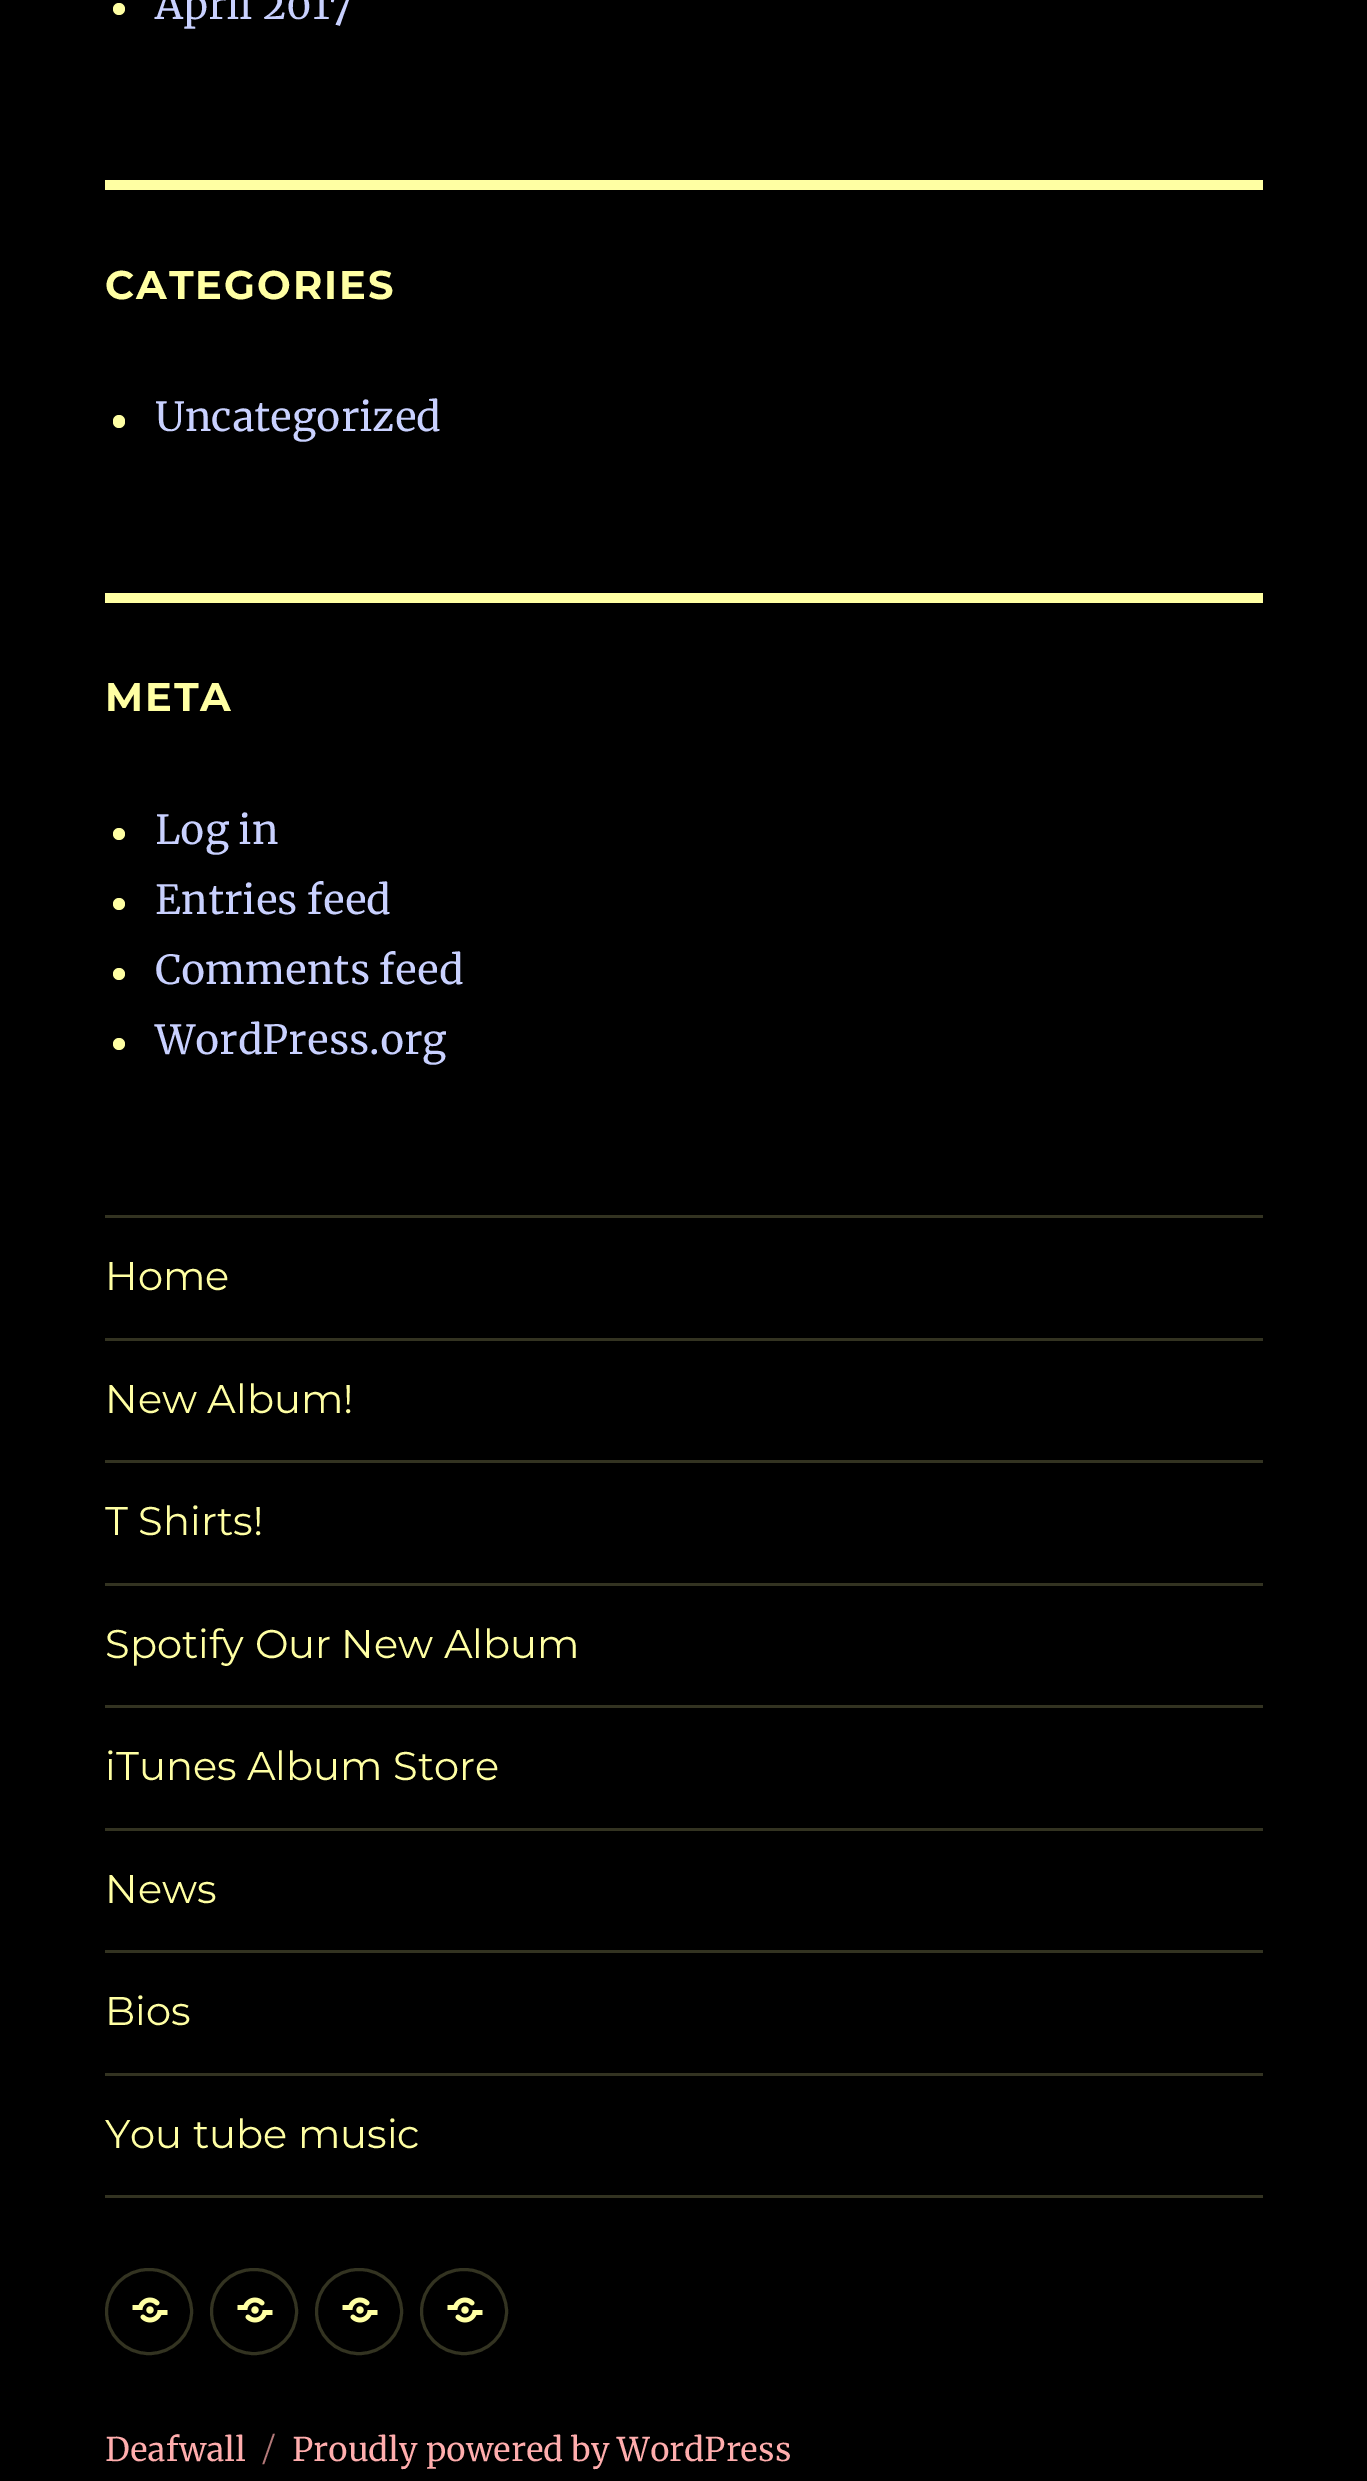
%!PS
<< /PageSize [1367 2481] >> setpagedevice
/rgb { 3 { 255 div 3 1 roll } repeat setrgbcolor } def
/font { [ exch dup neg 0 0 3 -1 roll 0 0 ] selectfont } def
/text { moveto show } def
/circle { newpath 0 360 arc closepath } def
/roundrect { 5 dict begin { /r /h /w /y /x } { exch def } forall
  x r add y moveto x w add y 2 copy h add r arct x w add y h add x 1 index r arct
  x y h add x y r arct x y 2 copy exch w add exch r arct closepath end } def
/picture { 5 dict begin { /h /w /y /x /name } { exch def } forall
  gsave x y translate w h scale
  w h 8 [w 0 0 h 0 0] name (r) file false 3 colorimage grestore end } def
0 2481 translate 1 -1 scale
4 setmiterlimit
0 0 0 rgb
0 0 1367 2481 rectfill
255 255 163 rgb
119 9 6 circle fill
105 180 1158 10 rectfill
113 415 12 13 6 roundrect fill
105 593 1158 10 rectfill
119 834 6 circle fill
119 904 6 circle fill
119 974 6 circle fill
119 1044 6 circle fill
51 51 33 rgb
105 2195 1158 3 rectfill
105 1215 1158 3 rectfill
105 1338 1158 3 rectfill
105 1460 1158 3 rectfill
105 1583 1158 3 rectfill
105 1705 1158 3 rectfill
105 1828 1158 3 rectfill
105 1950 1158 3 rectfill
105 2073 1158 3 rectfill
3 setlinewidth
106.5 2269.5 85 84 42 roundrect stroke
(img_01.rgb) 132 2297 36 26 picture
211.5 2269.5 85 84 42 roundrect stroke
(img_01.rgb) 237 2297 36 26 picture
316.5 2269.5 85 84 42 roundrect stroke
(img_01.rgb) 342 2297 36 26 picture
421.5 2269.5 85 84 42 roundrect stroke
(img_01.rgb) 447 2297 36 26 picture
/Merriweather-Regular 40 font
201 209 255 rgb
(April 2017) 155 19 text
/Montserrat-Thin 40 font
255 255 163 rgb
105 299 moveto 1.9 0 (CATEGORIES) ashow
/Merriweather-Regular 40 font
201 209 255 rgb
(Uncategorized) 155 431 text
/Montserrat-Thin 40 font
255 255 163 rgb
105 711 moveto 1.9 0 (META) ashow
/Merriweather-Regular 40 font
201 209 255 rgb
(Log in) 155 844 text
(Entries feed) 155 914 text
(Comments feed) 155 984 text
(WordPress.org) 155 1054 text
/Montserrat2-Thin 40 font
255 255 163 rgb
(Home) 105 1290 text
(New Album!) 105 1413 text
(T Shirts!) 105 1535 text
(Spotify Our New Album) 105 1658 text
(iTunes Album Store) 105 1780 text
(News) 105 1903 text
(Bios) 105 2025 text
(You tube music) 105 2148 text
/Merriweather-Regular 32.5 font
255 173 173 rgb
(Deafwall) 105 2461 text
/Montserrat2-Thin 32.5 font
179 121 121 rgb
(/) 263 2461 text
/Merriweather-Regular 32.5 font
255 173 173 rgb
(Proudly powered by WordPress) 292 2461 text
showpage
